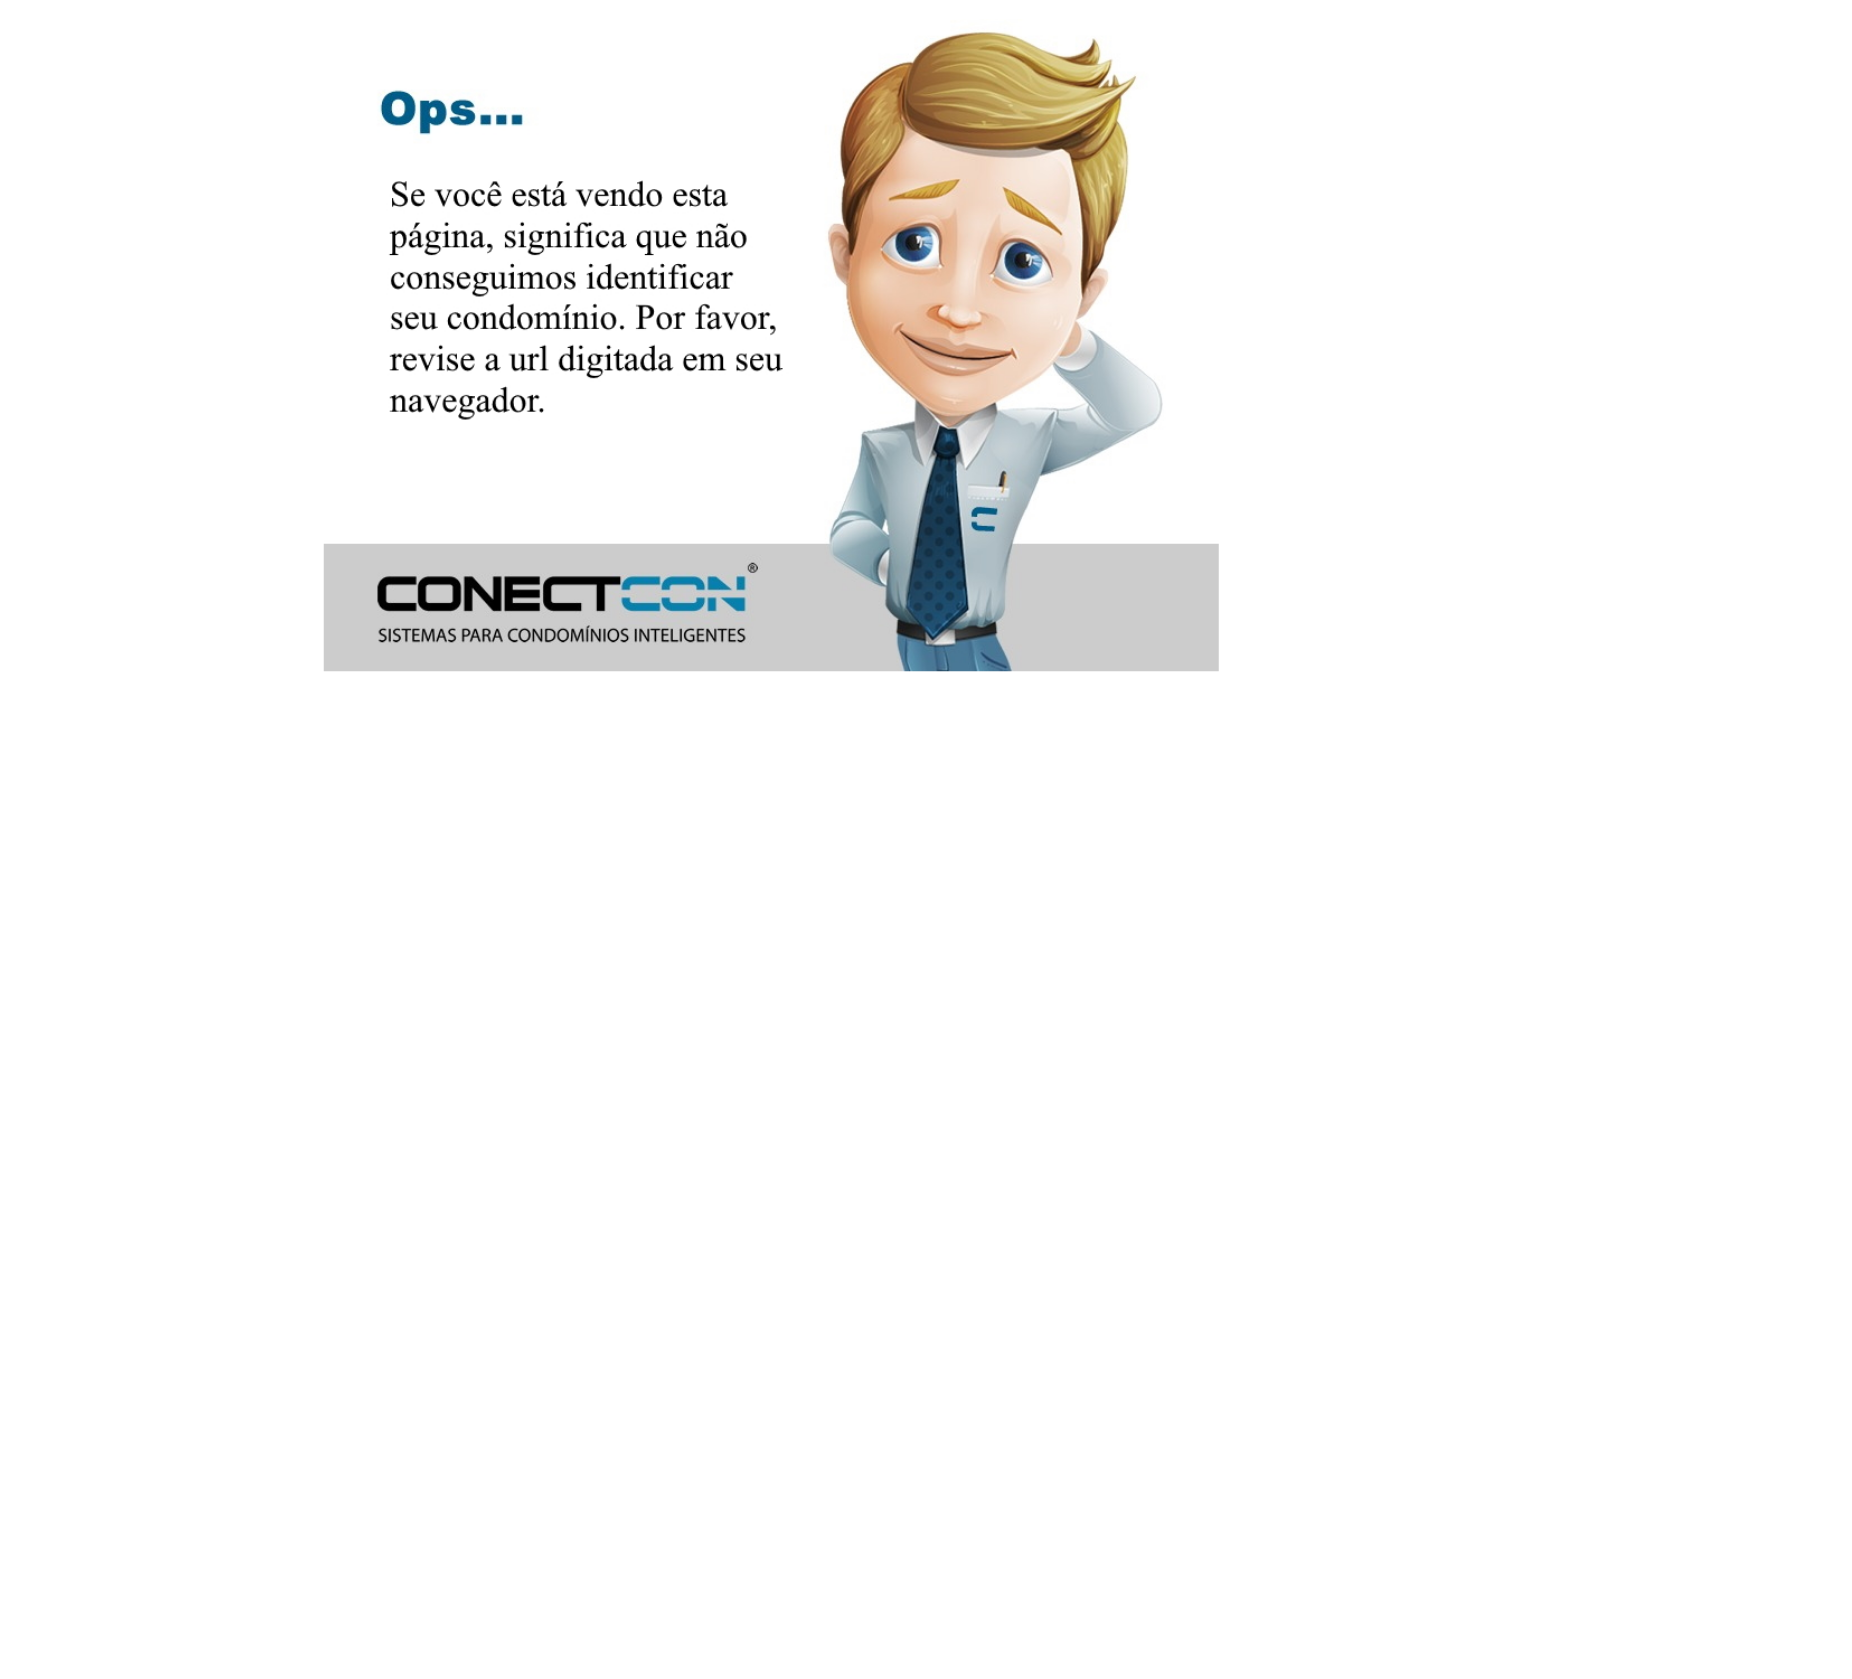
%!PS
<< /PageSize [1852 1679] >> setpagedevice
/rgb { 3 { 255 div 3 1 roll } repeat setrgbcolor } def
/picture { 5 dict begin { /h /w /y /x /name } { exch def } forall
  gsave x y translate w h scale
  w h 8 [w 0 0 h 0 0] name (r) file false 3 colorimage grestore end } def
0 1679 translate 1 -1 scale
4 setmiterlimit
255 255 255 rgb
0 0 1852 1679 rectfill
(img_01.rgb) 323 19 896 653 picture
showpage
